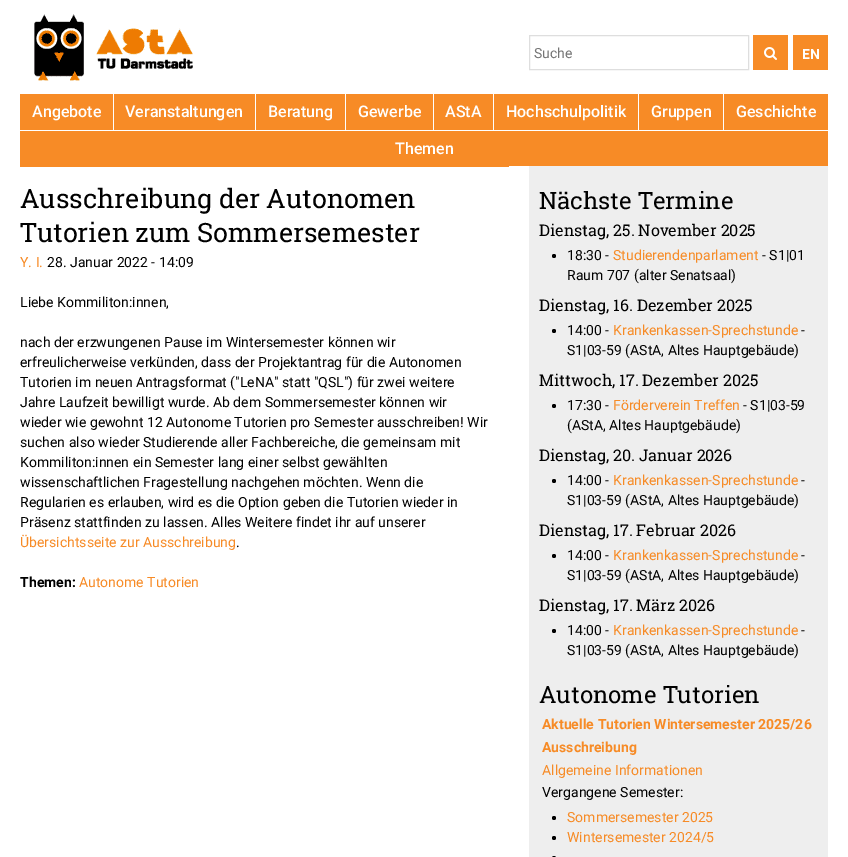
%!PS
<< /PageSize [848 857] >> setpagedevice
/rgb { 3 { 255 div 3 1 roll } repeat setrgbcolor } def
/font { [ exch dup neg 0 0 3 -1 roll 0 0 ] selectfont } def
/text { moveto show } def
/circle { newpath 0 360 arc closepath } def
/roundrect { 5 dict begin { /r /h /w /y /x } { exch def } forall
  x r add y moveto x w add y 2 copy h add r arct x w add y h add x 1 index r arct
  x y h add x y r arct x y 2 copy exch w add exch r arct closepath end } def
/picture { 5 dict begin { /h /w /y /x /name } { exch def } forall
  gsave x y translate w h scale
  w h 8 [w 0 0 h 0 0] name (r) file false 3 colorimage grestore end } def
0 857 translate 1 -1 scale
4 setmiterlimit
255 255 255 rgb
0 0 848 857 rectfill
(img_01.rgb) 34 14 159 67 picture
222 222 222 rgb
529.5 35.5 219 34 rectstroke
247 139 38 rgb
753 35 35 35 rectfill
(img_02.rgb) 764 47 13 13 picture
793 35 35 35 rectfill
20 94 93 36 rectfill
114 94 141 36 rectfill
256 94 89 36 rectfill
346 94 87 36 rectfill
434 94 59 36 rectfill
494 94 144 36 rectfill
639 94 84 36 rectfill
724 94 104 36 rectfill
20 131 808 36 rectfill
238 238 238 rgb
529 166 299 691 rectfill
255 255 255 rgb
509 166 20 1 rectfill
0 0 0 rgb
554 256 2 circle fill
554 331 2 circle fill
554 406 2 circle fill
554 481 2 circle fill
554 556 2 circle fill
554 631 2 circle fill
554 818 2 circle fill
554 838 2 circle fill
552 856 4 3 2 roundrect fill
/Roboto-Regular 14 font
117 117 117 rgb
(Suche) 534 58 text
/Roboto-Bold 14 font
255 255 255 rgb
(EN) 802 59 text
/Roboto-Medium 16 font
(Angebote) 32 117 text
(Veranstaltungen) 125 117 text
(Beratung) 268 117 text
(Gewerbe) 358 117 text
(AStA) 445 117 text
(Hochschulpolitik) 506 117 text
(Gruppen) 651 117 text
(Geschichte) 736 117 text
(Themen) 395 154 text
/RobotoSlab-Regular 26.6 font
0 0 0 rgb
(Ausschreibung der Autonomen) 20 208 text
(Tutorien zum Sommersemester) 20 242 text
/Roboto-Regular 14 font
247 139 38 rgb
(Y. I.) 20 267 text
0 0 0 rgb
(28. Januar 2022 - 14:09) 47 267 text
(Liebe Kommiliton:innen,) 20 307 text
(nach der erzwungenen Pause im Wintersemester können wir) 20 347 text
(erfreulicherweise verkünden, dass der Projektantrag für die Autonomen) 20 367 text
(Tutorien im neuen Antragsformat \("LeNA" statt "QSL"\) für zwei weitere) 20 387 text
(Jahre Laufzeit bewilligt wurde. Ab dem Sommersemester können wir) 20 407 text
(wieder wie gewohnt 12 Autonome Tutorien pro Semester ausschreiben! Wir) 20 427 text
(suchen also wieder Studierende aller Fachbereiche, die gemeinsam mit) 20 447 text
(Kommiliton:innen ein Semester lang einer selbst gewählten) 20 467 text
(wissenschaftlichen Fragestellung nachgehen möchten. Wenn die) 20 487 text
(Regularien es erlauben, wird es die Option geben die Tutorien wieder in) 20 507 text
(Präsenz stattfinden zu lassen. Alles Weitere findet ihr auf unserer) 20 527 text
247 139 38 rgb
(Übersichtsseite zur Ausschreibung) 20 547 text
0 0 0 rgb
(.) 236 547 text
/Roboto-Bold 14 font
(Themen:) 20 587 text
/Roboto-Regular 14 font
247 139 38 rgb
(Autonome Tutorien) 79 587 text
/RobotoSlab-Regular 23.75 font
0 0 0 rgb
(Nächste Termine) 539 209 text
/RobotoSlab-Regular 16 font
(Dienstag, 25. November 2025) 539 236 text
/Roboto-Regular 14 font
(18:30 -) 567 260 text
247 139 38 rgb
(Studierendenparlament) 613 260 text
0 0 0 rgb
(- S1|01) 762 260 text
(Raum 707 \(alter Senatsaal\)) 567 280 text
/RobotoSlab-Regular 16 font
(Dienstag, 16. Dezember 2025) 539 311 text
/Roboto-Regular 14 font
(14:00 -) 567 335 text
247 139 38 rgb
(Krankenkassen-Sprechstunde) 613 335 text
0 0 0 rgb
(-) 801 335 text
(S1|03-59 \(AStA, Altes Hauptgebäude\)) 567 355 text
/RobotoSlab-Regular 16 font
(Mittwoch, 17. Dezember 2025) 539 386 text
/Roboto-Regular 14 font
(17:30 -) 567 410 text
247 139 38 rgb
(Förderverein Treffen) 613 410 text
0 0 0 rgb
(- S1|03-59) 743 410 text
(\(AStA, Altes Hauptgebäude\)) 567 430 text
/RobotoSlab-Regular 16 font
(Dienstag, 20. Januar 2026) 539 461 text
/Roboto-Regular 14 font
(14:00 -) 567 485 text
247 139 38 rgb
(Krankenkassen-Sprechstunde) 613 485 text
0 0 0 rgb
(-) 801 485 text
(S1|03-59 \(AStA, Altes Hauptgebäude\)) 567 505 text
/RobotoSlab-Regular 16 font
(Dienstag, 17. Februar 2026) 539 536 text
/Roboto-Regular 14 font
(14:00 -) 567 560 text
247 139 38 rgb
(Krankenkassen-Sprechstunde) 613 560 text
0 0 0 rgb
(-) 801 560 text
(S1|03-59 \(AStA, Altes Hauptgebäude\)) 567 580 text
/RobotoSlab-Regular 16 font
(Dienstag, 17. März 2026) 539 611 text
/Roboto-Regular 14 font
(14:00 -) 567 635 text
247 139 38 rgb
(Krankenkassen-Sprechstunde) 613 635 text
0 0 0 rgb
(-) 801 635 text
(S1|03-59 \(AStA, Altes Hauptgebäude\)) 567 655 text
/RobotoSlab-Regular 23.75 font
(Autonome Tutorien) 539 703 text
/Roboto-Bold 14 font
247 139 38 rgb
(Aktuelle Tutorien Wintersemester 2025/26) 542 729 text
(Ausschreibung) 542 752 text
/Roboto-Regular 14 font
(Allgemeine Informationen) 542 775 text
0 0 0 rgb
(Vergangene Semester:) 542 797 text
247 139 38 rgb
(Sommersemester 2025) 567 822 text
(Wintersemester 2024/5) 567 842 text
showpage
